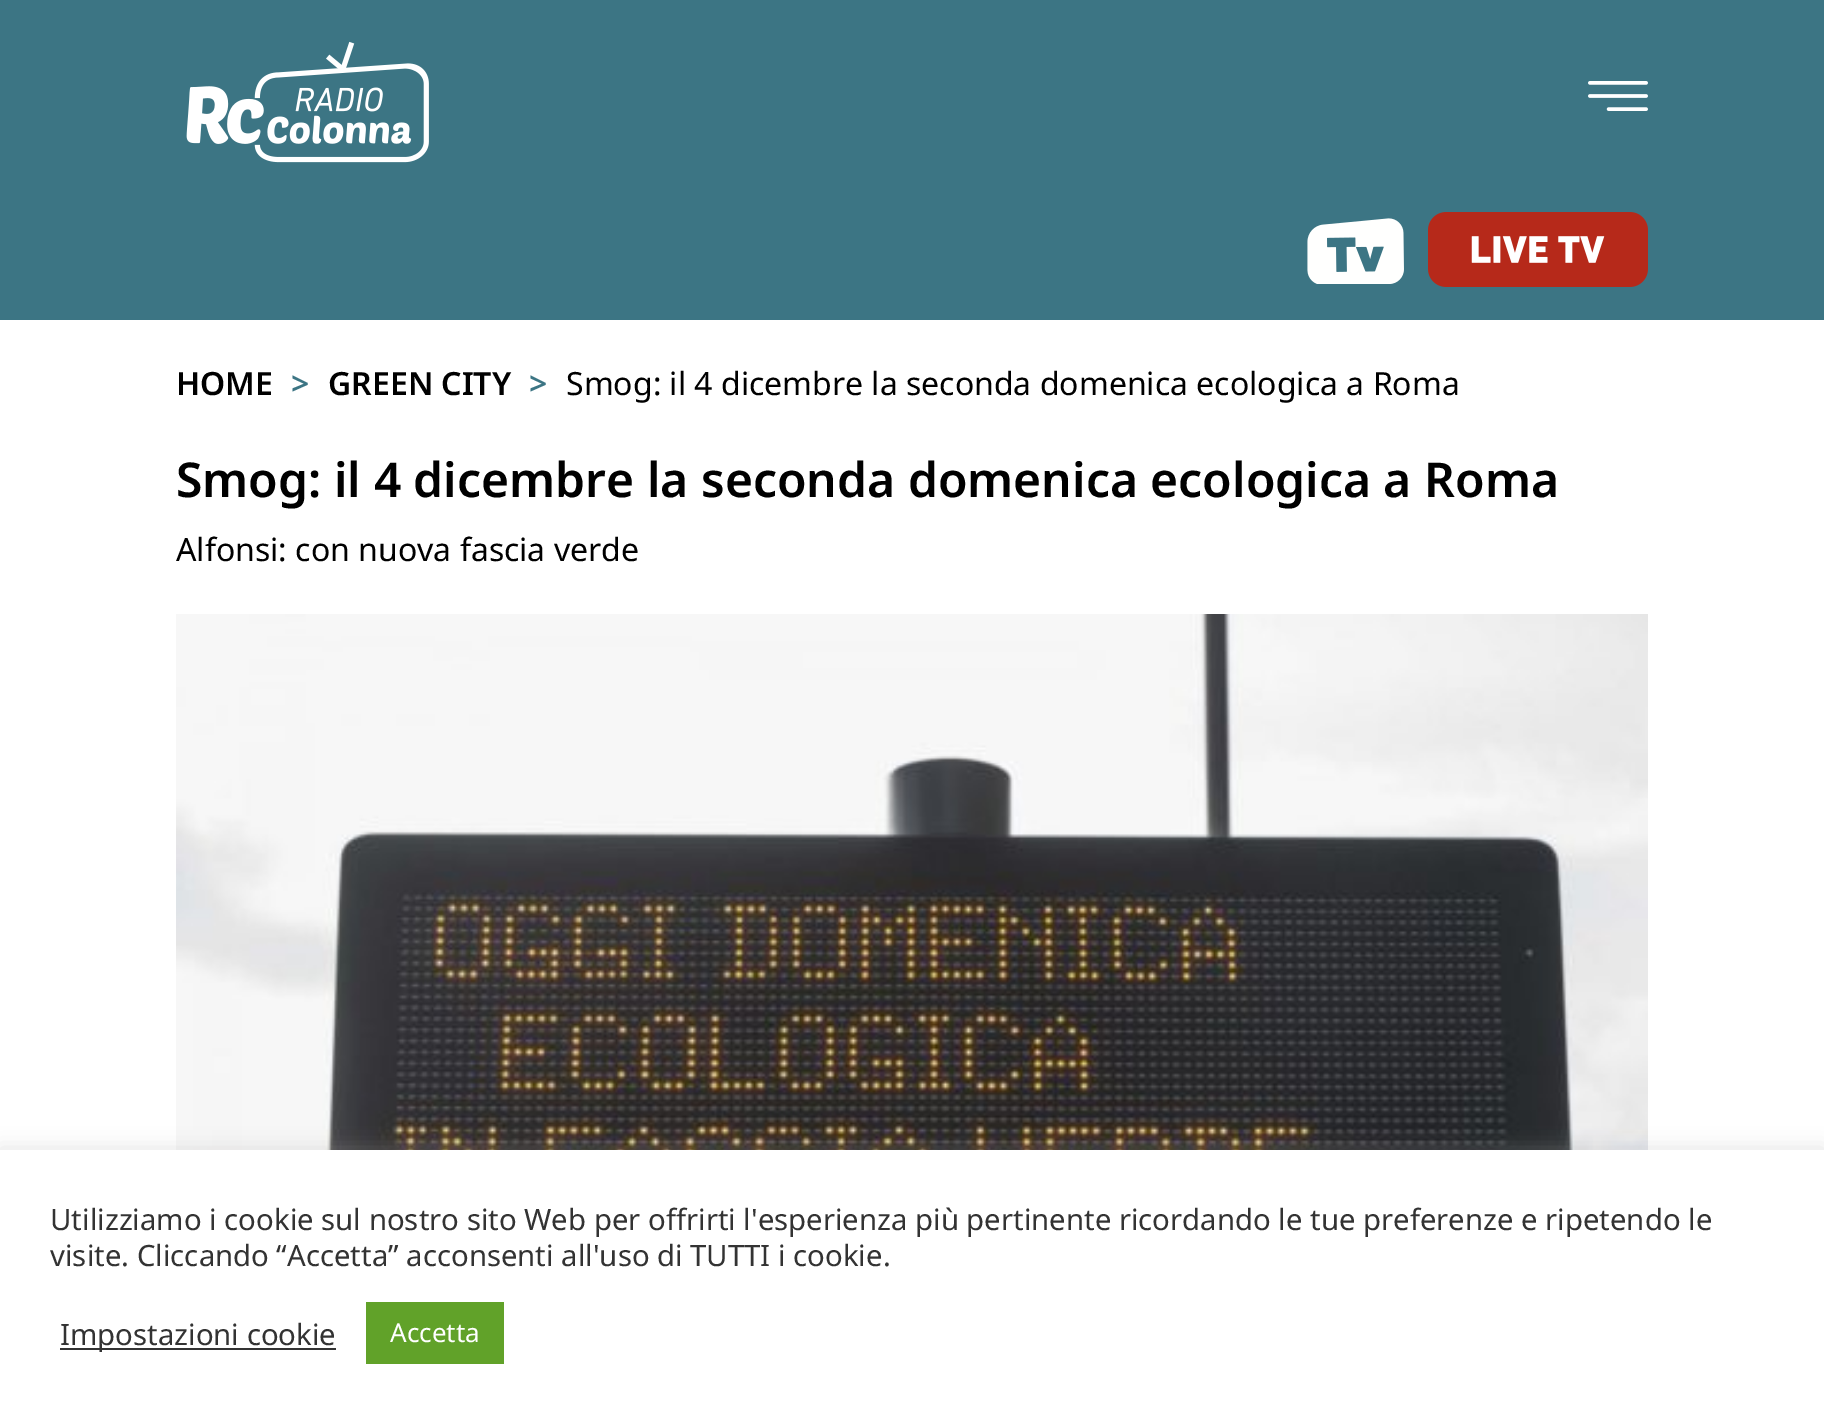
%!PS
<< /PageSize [1824 1424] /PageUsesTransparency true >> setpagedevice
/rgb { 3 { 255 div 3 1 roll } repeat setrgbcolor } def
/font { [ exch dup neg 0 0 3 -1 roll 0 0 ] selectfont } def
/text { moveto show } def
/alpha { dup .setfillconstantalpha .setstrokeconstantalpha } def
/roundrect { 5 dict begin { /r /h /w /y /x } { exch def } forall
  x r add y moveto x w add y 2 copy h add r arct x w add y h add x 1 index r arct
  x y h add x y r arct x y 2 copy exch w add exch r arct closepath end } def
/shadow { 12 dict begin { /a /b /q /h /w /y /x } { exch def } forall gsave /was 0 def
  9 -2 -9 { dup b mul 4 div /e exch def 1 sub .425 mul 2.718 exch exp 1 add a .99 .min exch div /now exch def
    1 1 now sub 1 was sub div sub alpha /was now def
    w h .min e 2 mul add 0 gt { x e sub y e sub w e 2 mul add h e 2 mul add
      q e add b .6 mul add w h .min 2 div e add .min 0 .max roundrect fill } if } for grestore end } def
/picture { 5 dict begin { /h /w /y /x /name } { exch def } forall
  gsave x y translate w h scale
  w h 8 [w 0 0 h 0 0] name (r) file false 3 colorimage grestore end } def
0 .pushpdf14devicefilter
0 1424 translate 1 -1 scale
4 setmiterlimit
255 255 255 rgb
0 0 1824 1424 rectfill
60 117 132 rgb
0 0 1824 320 rectfill
(img_01.rgb) 186 41 243 122 picture
(img_02.rgb) 1588 81 60 30 picture
(img_03.rgb) 1307 218 97 66 picture
(img_04.rgb) 1428 212 220 75 picture
(img_05.rgb) 176 614 1472 536 picture
172 171 171 rgb
0 1148 1824 274 0 10 0.3 shadow
255 255 255 rgb
0 1150 1824 274 rectfill
51 51 51 rgb
60 1348 276 2 rectfill
97 162 41 rgb
366 1302 138 62 rectfill
/NotoSans-SemiBold 32 font
0 0 0 rgb
(HOME) 176 395 text
60 117 132 rgb
(>) 291 395 text
0 0 0 rgb
(GREEN CITY) 328 395 text
60 117 132 rgb
(>) 529 395 text
/NotoSans-Regular 32 font
0 0 0 rgb
(Smog: il 4 dicembre la seconda domenica ecologica a Roma) 566 395 text
/NotoSans-SemiBold 48 font
(Smog: il 4 dicembre la seconda domenica ecologica a Roma) 176 497 text
/NotoSans-Regular 32 font
(Alfonsi: con nuova fascia verde) 176 561 text
/NotoSans-Regular 29.33 font
51 51 51 rgb
(Utilizziamo i cookie sul nostro sito Web per offrirti l'esperienza più pertinente ricordando le tue preferenze e ripetendo le) 50 1230 text
(visite. Cliccando “Accetta” acconsenti all'uso di TUTTI i cookie.) 50 1266 text
(Impostazioni cookie) 60 1345 text
/NotoSans-Regular 26 font
255 255 255 rgb
(Accetta) 390 1342 text
.poppdf14devicefilter showpage
